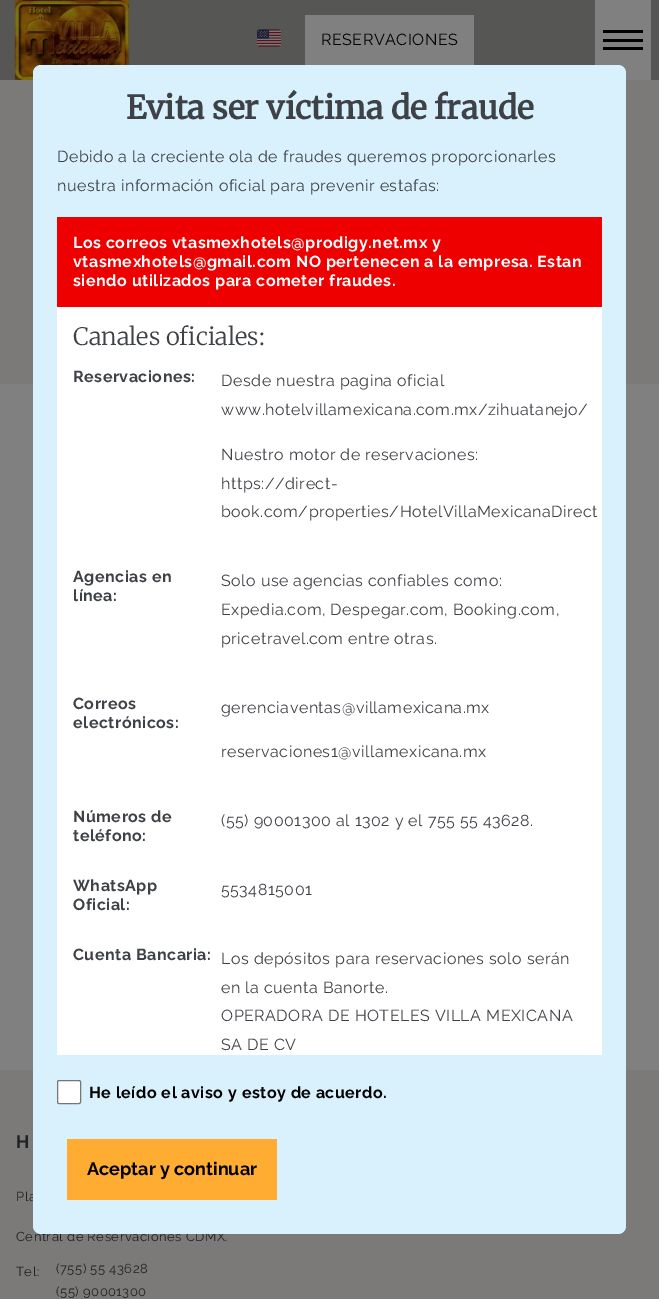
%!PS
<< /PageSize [659 1299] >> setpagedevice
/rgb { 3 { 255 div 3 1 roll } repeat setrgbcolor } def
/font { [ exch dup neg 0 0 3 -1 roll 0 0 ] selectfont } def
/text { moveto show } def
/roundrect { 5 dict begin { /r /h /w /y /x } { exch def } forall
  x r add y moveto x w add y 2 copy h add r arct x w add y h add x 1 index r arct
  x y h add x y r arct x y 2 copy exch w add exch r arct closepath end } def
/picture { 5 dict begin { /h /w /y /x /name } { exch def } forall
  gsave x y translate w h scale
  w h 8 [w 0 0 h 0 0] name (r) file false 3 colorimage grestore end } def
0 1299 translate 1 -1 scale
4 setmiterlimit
123 122 121 rgb
0 0 659 1299 rectfill
86 86 85 rgb
0 0 659 80 rectfill
(img_01.rgb) 14 0 116 80 picture
(img_02.rgb) 257 29 24 18 picture
128 128 128 rgb
305 15 169 50 rectfill
595 0 56 80 rectfill
0 0 0 rgb
603 30 40 3 rectfill
603 39 40 3 rectfill
603 47 40 3 rectfill
128 128 128 rgb
0 384 659 686 rectfill
/Raleway-Regular 16 font
0 0 0 rgb
321 45 moveto 0.5 0 (RESERVACIONES) ashow
/Raleway-Bold 18 font
31 33 35 rgb
(H) 16 1148 text
/Raleway-Regular 13 font
16 1201 moveto 0.5 0 (Pla) ashow
16 1241 moveto 0.5 0 (Central de Reservaciones CDMX.) ashow
216 241 252 rgb
33 65 593 1169 8 roundrect fill
255 255 255 rgb
57.5 1080.5 23 23 1.5 roundrect gsave fill grestore
118 118 118 rgb
stroke
255 255 255 rgb
57 307 545 748 rectfill
/Raleway-Regular 16 font
62 65 70 rgb
221 1050 moveto 0.5 0 (SA DE CV) ashow
221 1021 moveto 0.5 0 (OPERADORA DE HOTELES VILLA MEXICANA) ashow
221 993 moveto 0.5 0 (en la cuenta Banorte.) ashow
221 964 moveto 0.5 0 (Los depósitos para reservaciones solo serán) ashow
/Raleway-Bold 16 font
73 960 moveto 0.5 0 (Cuenta Bancaria:) ashow
/Raleway-Regular 16 font
221 895 moveto 0.5 0 (5534815001) ashow
/Raleway-Bold 16 font
73 910 moveto 0.5 0 (Oficial:) ashow
73 891 moveto 0.5 0 (WhatsApp) ashow
/Raleway-Regular 16 font
221 826 moveto 0.5 0 (\(55\) 90001300 al 1302 y el 755 55 43628.) ashow
/Raleway-Bold 16 font
73 841 moveto 0.5 0 (teléfono:) ashow
73 822 moveto 0.5 0 (Números de) ashow
/Raleway-Regular 16 font
221 757 moveto 0.5 0 (reservaciones1@villamexicana.mx) ashow
221 713 moveto 0.5 0 (gerenciaventas@villamexicana.mx) ashow
/Raleway-Bold 16 font
73 728 moveto 0.5 0 (electrónicos:) ashow
73 709 moveto 0.5 0 (Correos) ashow
/Raleway-Regular 16 font
221 644 moveto 0.5 0 (pricetravel.com entre otras.) ashow
221 615 moveto 0.5 0 (Expedia.com, Despegar.com, Booking.com,) ashow
221 586 moveto 0.5 0 (Solo use agencias confiables como:) ashow
/Raleway-Bold 16 font
73 601 moveto 0.5 0 (línea:) ashow
73 582 moveto 0.5 0 (Agencias en) ashow
/Raleway-Regular 16 font
221 517 moveto 0.5 0 (book.com/properties/HotelVillaMexicanaDirect) ashow
221 489 moveto 0.5 0 (https://direct-) ashow
221 460 moveto 0.5 0 (Nuestro motor de reservaciones:) ashow
221 415 moveto 0.5 0 (www.hotelvillamexicana.com.mx/zihuatanejo/) ashow
221 386 moveto 0.5 0 (Desde nuestra pagina oficial) ashow
/Raleway-Bold 16 font
73 382 moveto 0.5 0 (Reservaciones:) ashow
/Merriweather-Light 24 font
(Canales oficiales:) 73 345 text
255 172 51 rgb
67 1139 210 61 rectfill
/Raleway-Bold 18 font
0 0 0 rgb
(Aceptar y continuar) 87 1175 text
/Raleway-Bold 16 font
89 1098 moveto 0.5 0 (He leído el aviso y estoy de acuerdo.) ashow
238 0 0 rgb
57 217 545 90 rectfill
255 255 255 rgb
73 286 moveto 0.5 0 (siendo utilizados para cometer fraudes.) ashow
73 267 moveto 0.5 0 (vtasmexhotels@gmail.com NO pertenecen a la empresa. Estan) ashow
73 248 moveto 0.5 0 (Los correos vtasmexhotels@prodigy.net.mx y) ashow
/Raleway-Regular 16 font
62 65 70 rgb
57 191 moveto 0.5 0 (nuestra información oficial para prevenir estafas:) ashow
57 162 moveto 0.5 0 (Debido a la creciente ola de fraudes queremos proporcionarles) ashow
/Merriweather-Bold 32 font
(Evita ser víctima de fraude) 126 119 text
/Raleway-Regular 13 font
31 33 35 rgb
16 1276 moveto 0.5 0 (Tel:) ashow
56 1273 moveto 0.5 0 (\(755\) 55 43628) ashow
56 1296 moveto 0.5 0 (\(55\) 90001300) ashow
showpage
